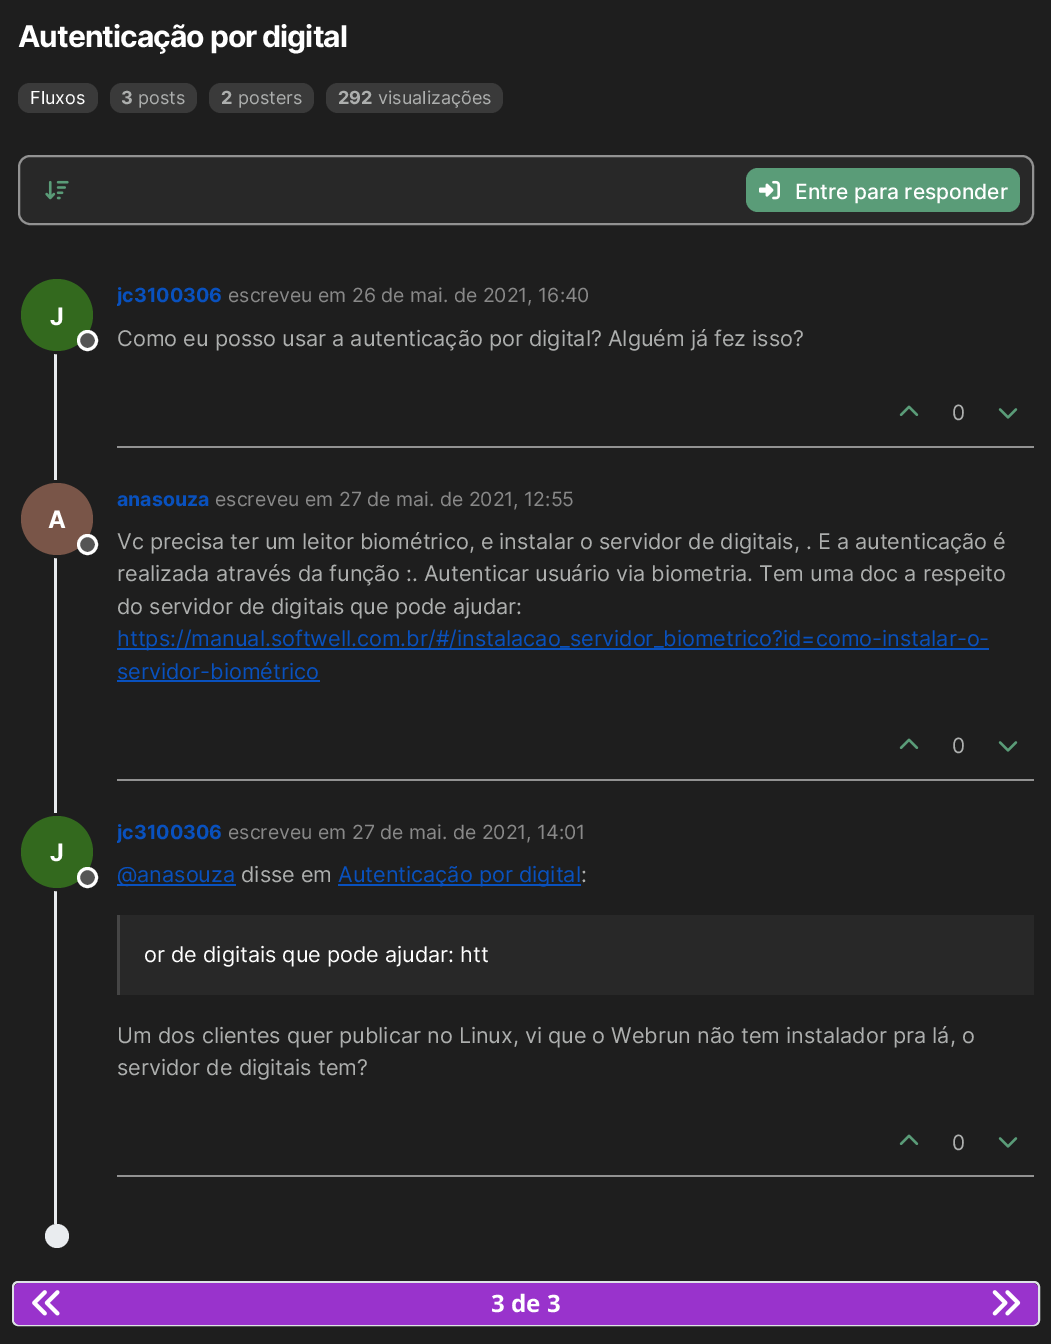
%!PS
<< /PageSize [1051 1344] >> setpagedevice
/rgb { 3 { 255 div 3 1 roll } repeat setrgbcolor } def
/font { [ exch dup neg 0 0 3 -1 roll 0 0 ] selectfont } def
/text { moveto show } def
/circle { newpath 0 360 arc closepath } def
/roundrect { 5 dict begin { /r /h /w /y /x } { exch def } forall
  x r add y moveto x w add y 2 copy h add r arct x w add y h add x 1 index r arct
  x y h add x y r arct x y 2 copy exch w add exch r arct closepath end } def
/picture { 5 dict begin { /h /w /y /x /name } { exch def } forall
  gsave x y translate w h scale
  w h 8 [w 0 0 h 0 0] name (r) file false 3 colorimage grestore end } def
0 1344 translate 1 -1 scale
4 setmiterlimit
30 30 30 rgb
0 0 1051 1344 rectfill
58 58 58 rgb
18 83 80 30 12 roundrect fill
110 83 87 30 12 roundrect fill
209 83 105 30 12 roundrect fill
326 83 177 30 12 roundrect fill
40 40 40 rgb
19 156 1014 68 11 roundrect gsave fill grestore
146 146 146 rgb
2 setlinewidth
stroke
(img_01.rgb) 45 180 24 20 picture
90 156 120 rgb
746 168 274 44 12 roundrect fill
(img_02.rgb) 759 180 21 20 picture
233 236 239 rgb
54 279 3 945 rectfill
30 30 30 rgb
3 setlinewidth
57 315 37.5 circle stroke
51 105 30 rgb
57 315 36 circle fill
85 85 85 rgb
87.5 340.5 9 circle gsave fill grestore
255 255 255 rgb
stroke
146 146 146 rgb
117 446 917 2 rectfill
(img_03.rgb) 899 405 20 11 picture
(img_04.rgb) 998 408 20 11 picture
30 30 30 rgb
57 519 37.5 circle stroke
121 85 72 rgb
57 519 36 circle fill
85 85 85 rgb
87.5 544.5 9 circle gsave fill grestore
255 255 255 rgb
stroke
9 81 190 rgb
117 648 872 2 rectfill
117 680 203 2 rectfill
146 146 146 rgb
117 779 917 2 rectfill
(img_03.rgb) 899 738 20 11 picture
(img_04.rgb) 998 741 20 11 picture
30 30 30 rgb
57 852 37.5 circle stroke
51 105 30 rgb
57 852 36 circle fill
85 85 85 rgb
87.5 877.5 9 circle gsave fill grestore
255 255 255 rgb
stroke
9 81 190 rgb
117 884 119 2 rectfill
338 884 243 2 rectfill
40 40 40 rgb
120 915 914 80 rectfill
69 69 69 rgb
117 915 3 80 rectfill
146 146 146 rgb
117 1175 917 2 rectfill
(img_03.rgb) 899 1134 20 11 picture
(img_04.rgb) 998 1137 20 11 picture
233 236 239 rgb
57 1236 12 circle fill
40 40 40 rgb
13 1282 1026 43 5 roundrect gsave fill grestore
222 226 230 rgb
2 setlinewidth
stroke
153 51 204 rgb
14 1283 1024 42 6 roundrect fill
(img_05.rgb) 32 1290 28 26 picture
(img_06.rgb) 992 1290 29 26 picture
/Inter-Bold 30 font
255 255 255 rgb
18 47 moveto -1 0 (Autenticação por digital) ashow
/Inter-Regular 18 font
(Fluxos) 30 104 text
/Inter-Bold 18 font
173 175 174 rgb
(3) 121 104 text
/Inter-Regular 18 font
(posts) 138 104 text
/Inter-Bold 18 font
(2) 221 104 text
/Inter-Regular 18 font
(posters) 238 104 text
/Inter-Bold 18 font
(292) 338 104 text
/Inter-Regular 18 font
(visualizações) 378 104 text
/Inter-Medium 21 font
255 255 255 rgb
(Entre para responder) 795 199 text
/Inter-Bold 24 font
(J) 50 325 text
gsave
117 279 105 30 rectclip
/Inter-Bold 19.5 font
9 81 190 rgb
(jc3100306) 117 302 text
grestore
/Inter-Regular 19.5 font
137 137 137 rgb
(escreveu em 26 de mai. de 2021, 16:40) 228 302 text
/Inter-Regular 21.6 font
173 175 174 rgb
(Como eu posso usar a autenticação por digital? Alguém já fez isso?) 117 346 text
/Inter-Regular 21 font
(0) 952 420 text
/Inter-Bold 24 font
255 255 255 rgb
(A) 48 528 text
/Inter-Bold 19.5 font
9 81 190 rgb
(anasouza) 117 506 text
/Inter-Regular 19.5 font
137 137 137 rgb
(escreveu em 27 de mai. de 2021, 12:55) 215 506 text
/Inter-Regular 21.6 font
173 175 174 rgb
(Vc precisa ter um leitor biométrico, e instalar o servidor de digitais, . E a autenticação é) 117 549 text
(realizada através da função :. Autenticar usuário via biometria.) 117 581 text
(Tem uma doc a respeito) 759 581 text
(do servidor de digitais que pode ajudar:) 117 614 text
9 81 190 rgb
(https://manual.softwell.com.br/#/instalacao_servidor_biometrico?id=como-instalar-o-) 117 646 text
(servidor-biométrico) 117 679 text
/Inter-Regular 21 font
173 175 174 rgb
(0) 952 753 text
/Inter-Bold 24 font
255 255 255 rgb
(J) 50 861 text
gsave
117 816 105 30 rectclip
/Inter-Bold 19.5 font
9 81 190 rgb
(jc3100306) 117 839 text
grestore
/Inter-Regular 19.5 font
137 137 137 rgb
(escreveu em 27 de mai. de 2021, 14:01) 228 839 text
/Inter-Regular 21.6 font
9 81 190 rgb
(@anasouza) 117 882 text
173 175 174 rgb
(disse em) 241 882 text
9 81 190 rgb
(Autenticação por digital) 338 882 text
173 175 174 rgb
(:) 581 882 text
255 255 255 rgb
(or de digitais que pode ajudar: htt) 144 962 text
173 175 174 rgb
(Um dos clientes quer publicar no Linux, vi que o Webrun não tem instalador pra lá, o) 117 1043 text
(servidor de digitais tem?) 117 1075 text
/Inter-Regular 21 font
(0) 952 1150 text
/NotoSans-Bold 24 font
255 255 255 rgb
(3 de 3) 491 1312 text
showpage
